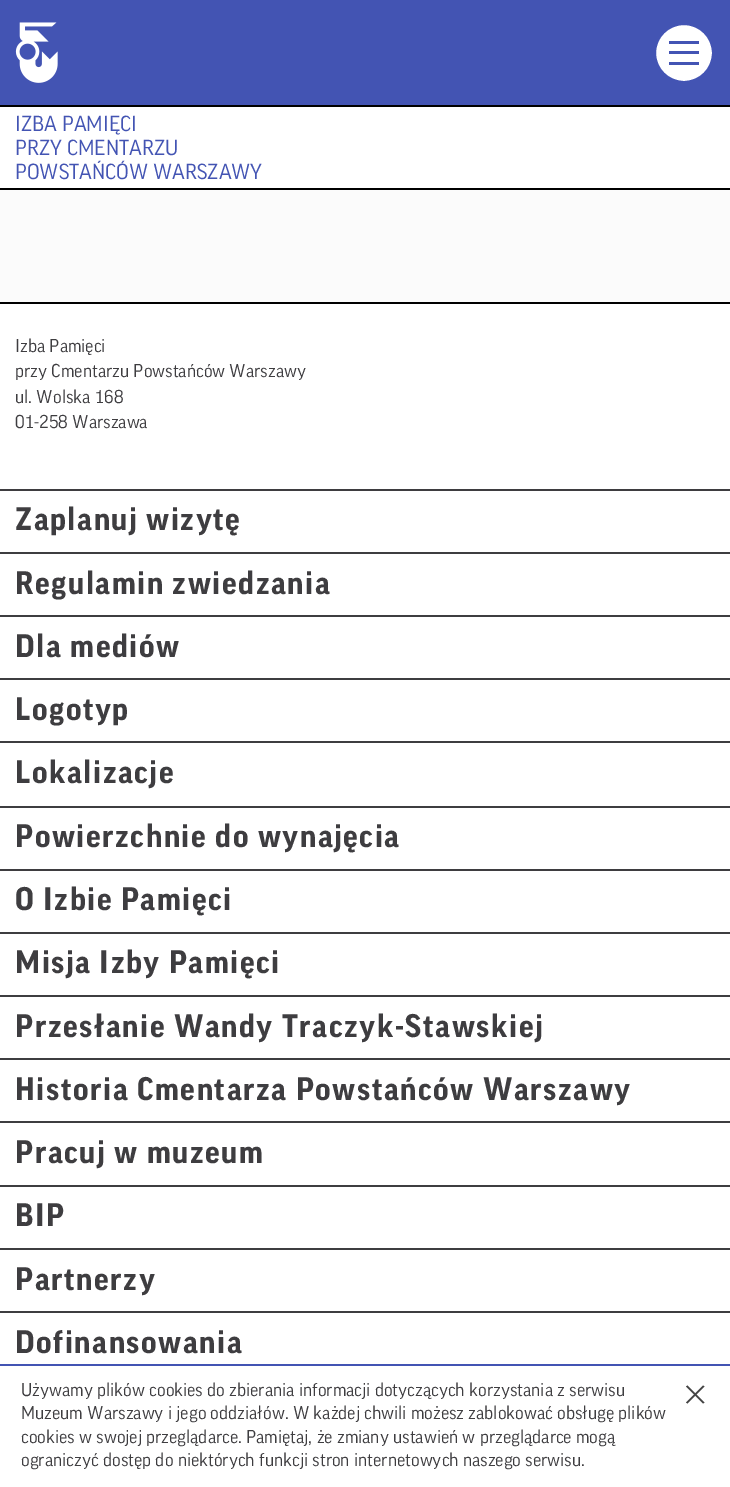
%!PS
<< /PageSize [730 1487] >> setpagedevice
/rgb { 3 { 255 div 3 1 roll } repeat setrgbcolor } def
/font { [ exch dup neg 0 0 3 -1 roll 0 0 ] selectfont } def
/text { moveto show } def
/circle { newpath 0 360 arc closepath } def
/picture { 5 dict begin { /h /w /y /x /name } { exch def } forall
  gsave x y translate w h scale
  w h 8 [w 0 0 h 0 0] name (r) file false 3 colorimage grestore end } def
0 1487 translate 1 -1 scale
4 setmiterlimit
255 255 255 rgb
0 0 730 1487 rectfill
67 84 179 rgb
0 0 730 105 rectfill
0 0 0 rgb
0 105 730 2 rectfill
(img_01.rgb) 15 22 43 61 picture
255 255 255 rgb
684 53 29 circle gsave fill grestore
67 84 180 rgb
2 setlinewidth
stroke
669 41 30 3 rectfill
669 51 30 3 rectfill
669 62 30 3 rectfill
0 0 0 rgb
0 188 730 2 rectfill
251 251 251 rgb
0 190 730 112 rectfill
0 0 0 rgb
0 302 730 2 rectfill
62 61 64 rgb
0 489 730 2 rectfill
0 552 730 2 rectfill
0 615 730 2 rectfill
0 678 730 2 rectfill
0 741 730 2 rectfill
0 806 730 2 rectfill
0 869 730 2 rectfill
0 932 730 2 rectfill
0 995 730 2 rectfill
0 1058 730 2 rectfill
0 1121 730 2 rectfill
0 1185 730 2 rectfill
0 1248 730 2 rectfill
0 1311 730 2 rectfill
67 84 179 rgb
0 1364 730 2 rectfill
68 68 68 rgb
703 1385.5 moveto 1.5 1 rlineto -17 17 rlineto -1.5 -1 rlineto closepath fill
686 1386.5 moveto 1.5 -1 rlineto 17 17 rlineto -1.5 1 rlineto closepath fill
/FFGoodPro-Regular 21 font
67 84 179 rgb
(IZBA PAMIĘCI) 15 131 text
(PRZY CMENTARZU) 15 155 text
(POWSTAŃCÓW WARSZAWY) 15 179 text
/FFGoodPro-Regular 18 font
62 61 64 rgb
(Izba Pamięci) 15 352 text
(przy Cmentarzu Powstańców Warszawy) 15 377 text
(ul. Wolska 168) 15 403 text
(01-258 Warszawa) 15 428 text
/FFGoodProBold-Regular 31.5 font
15 530 moveto 1.6 0 (Zaplanuj wizytę) ashow
15 594 moveto 1.6 0 (Regulamin zwiedzania) ashow
15 657 moveto 1.6 0 (Dla mediów) ashow
15 720 moveto 1.6 0 (Logotyp) ashow
15 783 moveto 1.6 0 (Lokalizacje) ashow
15 847 moveto 1.6 0 (Powierzchnie do wynajęcia) ashow
15 910 moveto 1.6 0 (O Izbie Pamięci) ashow
15 973 moveto 1.6 0 (Misja Izby Pamięci) ashow
15 1037 moveto 1.6 0 (Przesłanie Wandy Traczyk-Stawskiej) ashow
15 1100 moveto 1.6 0 (Historia Cmentarza Powstańców Warszawy) ashow
15 1163 moveto 1.6 0 (Pracuj w muzeum) ashow
15 1226 moveto 1.6 0 (BIP) ashow
15 1290 moveto 1.6 0 (Partnerzy) ashow
15 1353 moveto 1.6 0 (Dofinansowania) ashow
/FFGoodPro-Regular 18 font
(Używamy plików cookies do zbierania informacji dotyczących korzystania z serwisu) 21 1396 text
(Muzeum Warszawy i jego oddziałów. W każdej chwili możesz zablokować obsługę plików) 21 1419 text
(cookies w swojej przeglądarce. Pamiętaj, że zmiany ustawień w przeglądarce mogą) 21 1443 text
(ograniczyć dostęp do niektórych funkcji stron internetowych naszego serwisu.) 21 1466 text
showpage
